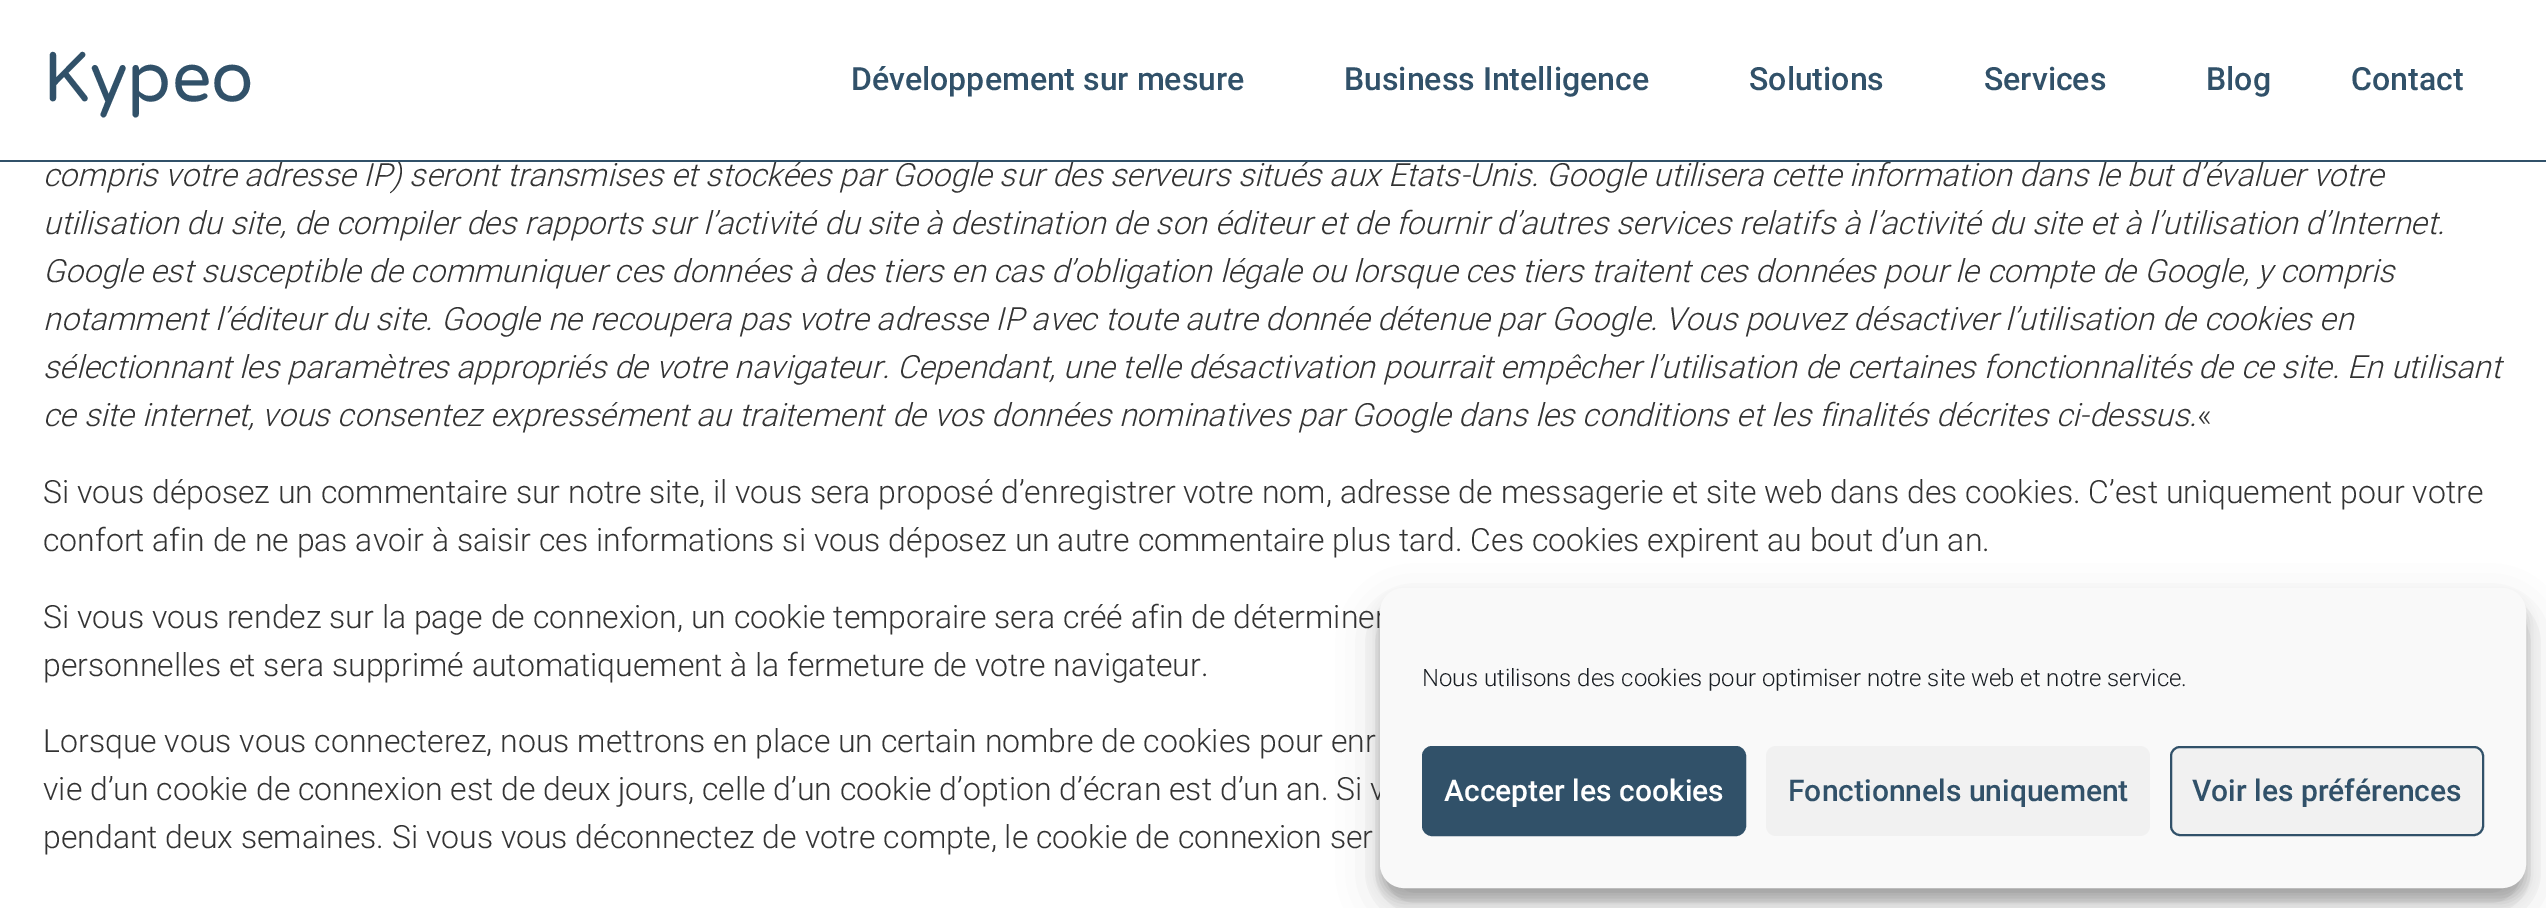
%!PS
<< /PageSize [2546 908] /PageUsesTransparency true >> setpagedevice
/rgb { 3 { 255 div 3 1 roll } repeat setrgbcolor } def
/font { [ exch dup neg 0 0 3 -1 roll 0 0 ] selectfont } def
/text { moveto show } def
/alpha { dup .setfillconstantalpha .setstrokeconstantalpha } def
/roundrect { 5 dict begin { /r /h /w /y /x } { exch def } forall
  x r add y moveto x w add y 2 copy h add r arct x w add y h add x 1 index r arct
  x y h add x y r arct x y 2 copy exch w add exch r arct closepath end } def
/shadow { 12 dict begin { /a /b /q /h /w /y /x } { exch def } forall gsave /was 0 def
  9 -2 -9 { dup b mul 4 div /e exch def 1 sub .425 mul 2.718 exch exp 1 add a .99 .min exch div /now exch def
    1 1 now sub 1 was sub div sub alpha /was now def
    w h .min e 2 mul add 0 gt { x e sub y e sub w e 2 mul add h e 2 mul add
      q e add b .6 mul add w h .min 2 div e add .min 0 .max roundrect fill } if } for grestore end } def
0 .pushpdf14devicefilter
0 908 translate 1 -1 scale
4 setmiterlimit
255 255 255 rgb
0 0 2546 908 rectfill
0 0 0 rgb
1380 600 1146 300 24 6 0.23 shadow
1380 608 1146 300 24 20 0.19 shadow
/VarelaRound-Regular 70 font
49 81 105 rgb
(Kypeo) 43 101 text
/Roboto-Medium 32 font
(Développement sur mesure) 851 90 text
(Business Intelligence) 1344 90 text
(Solutions) 1749 90 text
(Services) 1984 90 text
(Blog) 2206 90 text
(Contact) 2351 90 text
/Roboto-LightItalic 32 font
51 51 51 rgb
(compris votre adresse IP\) seront transmises et stockées par Google sur des serveurs situés aux Etats-Unis. Google utilisera cette information dans le but d’évaluer votre) 43 186 text
49 81 105 rgb
0 160 2546 2 rectfill
51 51 51 rgb
(utilisation du site, de compiler des rapports sur l’activité du site à destination de son éditeur et de fournir d’autres services relatifs à l’activité du site et à l’utilisation d’Internet.) 43 234 text
(Google est susceptible de communiquer ces données à des tiers en cas d’obligation légale ou lorsque ces tiers traitent ces données pour le compte de Google, y compris) 43 282 text
(notamment l’éditeur du site. Google ne recoupera pas votre adresse IP avec toute autre donnée détenue par Google. Vous pouvez désactiver l’utilisation de cookies en) 43 330 text
(sélectionnant les paramètres appropriés de votre navigateur. Cependant, une telle désactivation pourrait empêcher l’utilisation de certaines fonctionnalités de ce site. En utilisant) 43 378 text
(ce site internet, vous consentez expressément au traitement de vos données nominatives par Google dans les conditions et les finalités décrites ci-dessus.) 43 426 text
/Roboto-Light 32 font
(«) 2197 426 text
(Si vous déposez un commentaire sur notre site, il vous sera proposé d’enregistrer votre nom, adresse de messagerie et site web dans des cookies. C’est uniquement pour votre) 43 503 text
(confort afin de ne pas avoir à saisir ces informations si vous déposez un autre commentaire plus tard. Ces cookies expirent au bout d’un an.) 43 551 text
(Si vous vous rendez sur la page de connexion, un cookie temporaire sera créé afin de déterminer) 43 628 text
(personnelles et sera supprimé automatiquement à la fermeture de votre navigateur.) 43 676 text
(Lorsque vous vous connecterez, nous mettrons en place un certain nombre de cookies pour enr) 43 752 text
(vie d’un cookie de connexion est de deux jours, celle d’un cookie d’option d’écran est d’un an. Si v) 43 800 text
(pendant deux semaines. Si vous vous déconnectez de votre compte, le cookie de connexion ser) 43 848 text
249 249 249 rgb
1381 589 1144 298 23 roundrect gsave fill grestore
2 setlinewidth
stroke
/Roboto-Light 24 font
25 30 35 rgb
(Nous utilisons des cookies pour optimiser notre site web et notre service.) 1422 686 text
49 81 105 rgb
1423 747 322 88 9 roundrect gsave fill grestore
stroke
/Roboto-Medium 30 font
255 255 255 rgb
(Accepter les cookies) 1444 801 text
241 241 241 rgb
1766 746 384 90 10 roundrect fill
49 81 105 rgb
(Fonctionnels uniquement) 1788 801 text
241 241 241 rgb
2171 747 312 88 9 roundrect gsave fill grestore
49 81 105 rgb
stroke
(Voir les préférences) 2192 801 text
.poppdf14devicefilter showpage
